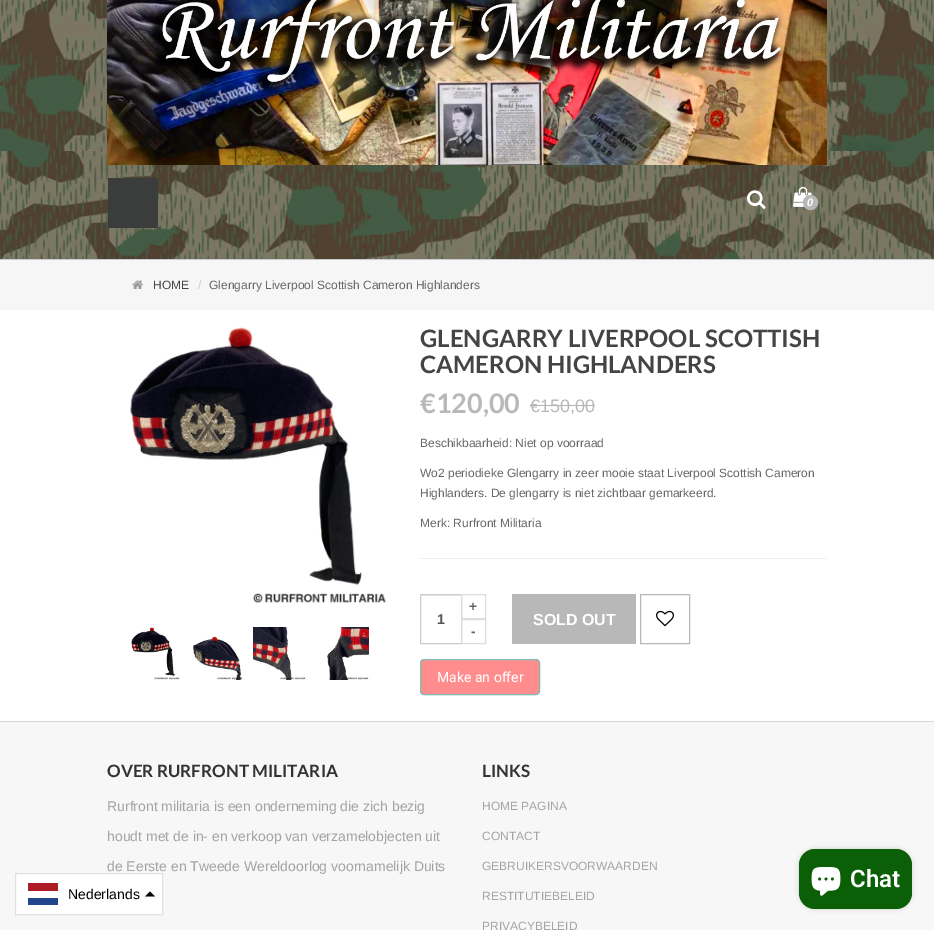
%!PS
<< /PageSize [934 930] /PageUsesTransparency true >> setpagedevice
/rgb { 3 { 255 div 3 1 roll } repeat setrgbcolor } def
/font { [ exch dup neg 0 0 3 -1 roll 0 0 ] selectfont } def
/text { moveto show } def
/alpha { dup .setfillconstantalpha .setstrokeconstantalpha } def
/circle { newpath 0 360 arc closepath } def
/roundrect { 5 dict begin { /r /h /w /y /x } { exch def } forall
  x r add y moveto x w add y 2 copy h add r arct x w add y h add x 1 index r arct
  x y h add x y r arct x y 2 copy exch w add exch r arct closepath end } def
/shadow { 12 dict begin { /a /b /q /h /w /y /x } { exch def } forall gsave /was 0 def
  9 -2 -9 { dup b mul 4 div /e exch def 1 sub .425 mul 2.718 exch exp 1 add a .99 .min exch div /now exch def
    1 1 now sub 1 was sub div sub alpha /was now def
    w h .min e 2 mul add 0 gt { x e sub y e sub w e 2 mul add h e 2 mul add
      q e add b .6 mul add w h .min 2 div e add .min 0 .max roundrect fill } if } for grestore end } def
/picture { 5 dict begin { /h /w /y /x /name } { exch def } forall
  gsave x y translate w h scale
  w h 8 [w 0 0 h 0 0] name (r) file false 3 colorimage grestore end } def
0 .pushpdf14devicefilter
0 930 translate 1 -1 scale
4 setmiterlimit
255 255 255 rgb
0 0 934 930 rectfill
(img_01.rgb) 0 0 934 259 picture
204 204 204 rgb
0 259 934 1 rectfill
(img_02.rgb) 107 0 720 165 picture
59 61 61 rgb
108 178 50 50 rectfill
(img_03.rgb) 747 190 19 19 picture
(img_04.rgb) 793 186 19 21 picture
184 184 184 rgb
810.5 202.5 7 circle gsave fill grestore
stroke
246 246 246 rgb
0 260 934 50 rectfill
(img_05.rgb) 132 280 11 9 picture
(img_06.rgb) 130 327 256 276 picture
(img_07.rgb) 131 627 49 53 picture
(img_08.rgb) 193 636 50 44 picture
(img_09.rgb) 253 627 53 53 picture
(img_10.rgb) 327 627 42 53 picture
238 238 238 rgb
420 558 407 1 rectfill
236 236 236 rgb
421 595 40 1 rectfill
204 204 204 rgb
420.5 594.5 41 49 rectstroke
221 221 221 rgb
461.5 594.5 24 24 rectstroke
461.5 619.5 24 24 rectstroke
184 184 184 rgb
512 594 124 50 rectfill
640.5 594.5 49 49 rectstroke
(img_11.rgb) 656 610 18 17 picture
143 144 146 rgb
420 660 120 36 4 0.5 0.1 shadow
255 141 141 rgb
420.5 659.5 119 35 3.5 roundrect gsave fill grestore
128 189 174 rgb
stroke
247 247 247 rgb
0 722 934 208 rectfill
217 217 217 rgb
0 721 934 1 rectfill
0 0 0 rgb
799 849 113 60 16 2.5 0.15 shadow
11 96 7 rgb
799 849 113 60 16 roundrect fill
(img_12.rgb) 811 867 30 29 picture
/LiberationSans-BoldItalic 11 font
255 255 255 rgb
(0) 807 206 text
/LiberationSans-Regular 12 font
68 68 68 rgb
(HOME) 153 289 text
204 204 204 rgb
(/) 198 289 text
102 102 102 rgb
(Glengarry Liverpool Scottish Cameron Highlanders) 209 289 text
/Lato-Bold 24 font
68 68 68 rgb
(GLENGARRY LIVERPOOL SCOTTISH) 420 347 text
(CAMERON HIGHLANDERS) 420 373 text
/Lato-Bold 27 font
184 184 184 rgb
(€120,00) 420 413 text
/LiberationSans-Regular 18 font
(€150,00) 530 412 text
179 179 179 rgb
530 405 65 1 rectfill
/LiberationSans-Regular 12 font
102 102 102 rgb
(Beschikbaarheid: Niet op voorraad) 420 447 text
(Wo2 periodieke Glengarry in zeer mooie staat Liverpool Scottish Cameron) 420 477 text
(Highlanders. De glengarry is niet zichtbaar gemarkeerd.) 420 497 text
(Merk: Rurfront Militaria) 420 527 text
/LiberationSans-Bold 14 font
(+) 469 611 text
85 85 85 rgb
(1) 437 624 text
102 102 102 rgb
(-) 471 636 text
/LiberationSans-Bold 16 font
255 255 255 rgb
(SOLD OUT) 533 625 text
/Roboto-Regular 14 font
(Make an offer) 437 682 text
/Lato-Bold 17 font
51 51 51 rgb
(OVER RURFRONT MILITARIA) 107 777 text
/LiberationSans-Regular 14 font
163 163 163 rgb
(Rurfront militaria is een onderneming die zich bezig) 107 811 text
(houdt met de in- en verkoop van verzamelobjecten uit) 107 841 text
(de Eerste en Tweede Wereldoorlog voornamelijk Duits) 107 871 text
/Lato-Bold 17 font
51 51 51 rgb
(LINKS) 482 777 text
/LiberationSans-Regular 12 font
163 163 163 rgb
(HOME PAGINA) 482 810 text
(CONTACT) 482 840 text
(GEBRUIKERSVOORWAARDEN) 482 870 text
(RESTITUTIEBELEID) 482 900 text
(PRIVACYBELEID) 482 930 text
/Roboto-SemiBold 24 font
255 255 255 rgb
(Chat) 850 887 text
15.5 873.5 moveto 147 0 rlineto 0 41 rlineto -147 0 rlineto closepath gsave fill grestore
224 224 224 rgb
stroke
33 70 139 rgb
28 898 30 7 rectfill
174 28 40 rgb
28 883 30 8 rectfill
/LiberationSans-Regular 14 font
0 0 0 rgb
(Nederlands) 68 899 text
145 896.5 moveto 5 -5 rlineto 5 5 rlineto closepath eofill
.poppdf14devicefilter showpage
